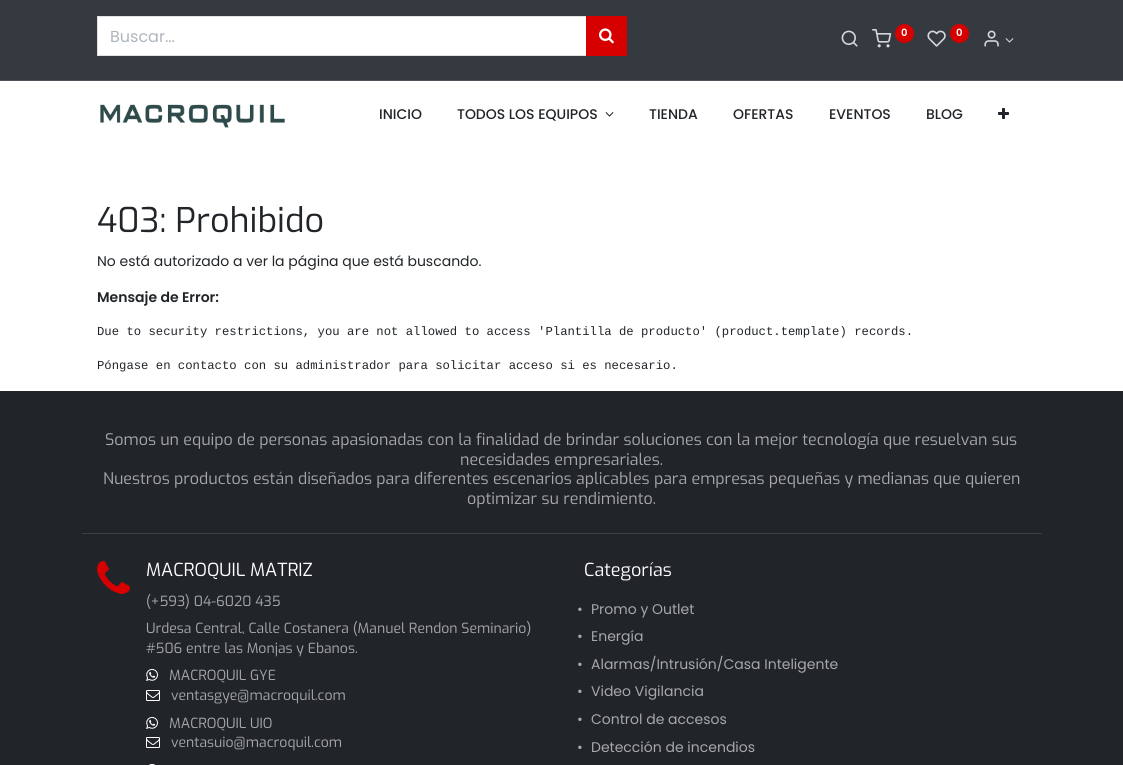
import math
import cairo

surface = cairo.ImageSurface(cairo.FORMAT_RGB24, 1123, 765)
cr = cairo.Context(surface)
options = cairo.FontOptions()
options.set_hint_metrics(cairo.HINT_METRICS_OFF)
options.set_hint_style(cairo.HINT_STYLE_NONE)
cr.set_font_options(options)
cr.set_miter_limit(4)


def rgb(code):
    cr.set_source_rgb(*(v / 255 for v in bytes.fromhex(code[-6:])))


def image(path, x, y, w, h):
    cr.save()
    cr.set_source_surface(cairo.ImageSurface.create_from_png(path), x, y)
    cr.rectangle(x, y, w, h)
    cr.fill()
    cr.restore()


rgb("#ffffff")
cr.paint()
rgb("#343a40")
cr.rectangle(0, 0, 1123, 80)
cr.fill()
rgb("#4c5257")
cr.rectangle(0, 80, 1123, 1)
cr.fill()
rgb("#ffffff")
cr.rectangle(97.5, 16.5, 489, 39)
cr.fill_preserve()
rgb("#dee2e6")
cr.set_line_width(1)
cr.stroke()
rgb("#d60000")
cr.rectangle(586, 16, 41, 40)
cr.fill()
image("img/1.png", 599, 28, 15, 16)
image("img/2.png", 841, 30, 17, 17)
image("img/3.png", 872, 29, 20, 19)
cr.arc(904.5, 33.5, 9.5, 0, 2 * math.pi)
cr.fill()
image("img/4.png", 927, 30, 19, 17)
cr.arc(959.5, 33.5, 9.5, 0, 2 * math.pi)
cr.fill()
image("img/5.png", 984, 30, 15, 17)
image("img/6.png", 1005, 38, 9, 5)
image("img/7.png", 100, 104, 185, 24)
image("img/8.png", 605, 112, 9, 5)
image("img/9.png", 998, 108, 11, 11)
rgb("#212529")
cr.rectangle(0, 391, 1123, 374)
cr.fill()
rgb("#3c3f43")
cr.rectangle(82, 533, 960, 1)
cr.fill()
image("img/10.png", 97, 561, 33, 33)
image("img/11.png", 146, 669, 12, 12)
image("img/12.png", 146, 690, 14, 11)
image("img/11.png", 146, 717, 12, 12)
image("img/12.png", 146, 737, 14, 11)
image("img/13.png", 149, 764, 7, 1)
cr.select_font_face("Poppins")
cr.set_font_size(16)
rgb("#adb5bd")
cr.move_to(110, 42)
cr.show_text("Buscar...")
cr.select_font_face("Poppins SemiBold")
cr.set_font_size(10)
rgb("#ffffff")
cr.move_to(901, 36)
cr.show_text("0")
cr.move_to(956, 36)
cr.show_text("0")
cr.select_font_face("Poppins Medium")
cr.set_font_size(14)
rgb("#212529")
for x, y, s in [
    (379, 119, "INICIO"),
    (457, 119, "TODOS LOS EQUIPOS"),
    (649, 119, "TIENDA"),
    (733, 119, "OFERTAS"),
    (829, 119, "EVENTOS"),
    (926, 119, "BLOG"),
]:
    cr.move_to(x, y)
    cr.show_text(s)
cr.select_font_face("Exo")
cr.set_font_size(34)
cr.move_to(97, 232)
cr.show_text("403: Prohibido")
cr.select_font_face("Poppins")
cr.set_font_size(14)
cr.move_to(97, 266)
cr.show_text("No está autorizado a ver la página que está buscando.")
cr.select_font_face("Poppins SemiBold")
cr.move_to(97, 302)
cr.show_text("Mensaje de Error:")
cr.select_font_face("Liberation Mono")
cr.set_font_size(12.25)
cr.move_to(97, 335)
cr.show_text("Due to security restrictions, you are not allowed to access 'Plantilla de producto' (product.template) records.")
cr.move_to(97, 369)
cr.show_text("Póngase en contacto con su administrador para solicitar acceso si es necesario.")
cr.select_font_face("Exo")
cr.set_font_size(16)
rgb("#a6a8a9")
for x, y, s in [
    (105, 445, "Somos un equipo de personas apasionadas con la finalidad de brindar soluciones con la mejor tecnología que resuelvan sus"),
    (460, 465, "necesidades empresariales."),
    (103, 484, "Nuestros productos están diseñados para diferentes escenarios aplicables para empresas pequeñas y medianas que quieren"),
    (467, 504, "optimizar su rendimiento."),
]:
    cr.move_to(x, y)
    cr.show_text(s)
cr.set_font_size(18)
rgb("#ffffff")
cr.move_to(146, 576)
cr.show_text("MACROQUIL MATRIZ")
cr.set_font_size(14)
rgb("#a6a8a9")
for x, y, s in [
    (146, 606, "(+593) 04-6020 435"),
    (146, 633, "Urdesa Central, Calle Costanera (Manuel Rendon Seminario)"),
    (146, 653, "#506 entre las Monjas y Ebanos."),
    (169, 680, "MACROQUIL GYE"),
    (171, 700, "ventasgye@macroquil.com"),
    (169, 728, "MACROQUIL UIO"),
    (171, 747, "ventasuio@macroquil.com"),
]:
    cr.move_to(x, y)
    cr.show_text(s)
cr.set_font_size(18)
rgb("#ffffff")
cr.move_to(584, 576)
cr.show_text("Categorías")
cr.select_font_face("Poppins")
cr.set_font_size(14)
rgb("#a6a8a9")
for x, y, s in [
    (577, 614, "•"),
    (591, 614, "Promo y Outlet"),
    (577, 641, "•"),
    (591, 641, "Energía"),
    (577, 669, "•"),
    (591, 669, "Alarmas/Intrusión/Casa Inteligente"),
    (577, 696, "•"),
    (591, 696, "Video Vigilancia"),
    (577, 724, "•"),
    (591, 724, "Control de accesos"),
    (577, 752, "•"),
    (591, 752, "Detección de incendios"),
]:
    cr.move_to(x, y)
    cr.show_text(s)
surface.write_to_png("page.png")
